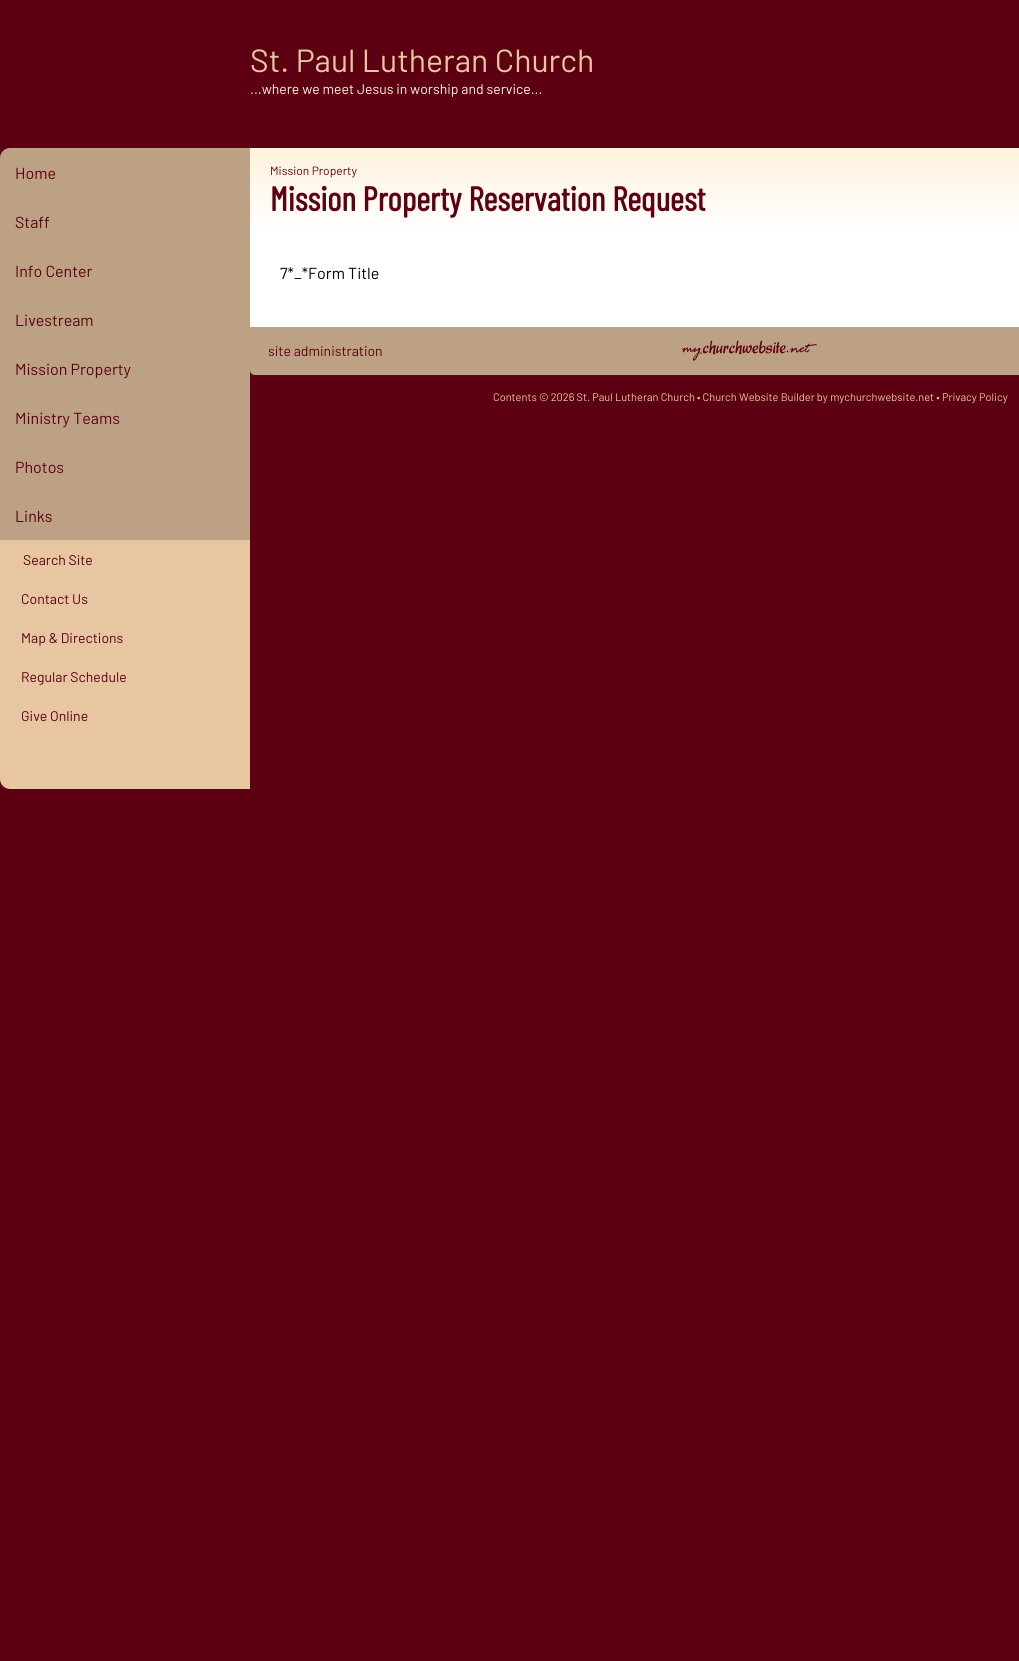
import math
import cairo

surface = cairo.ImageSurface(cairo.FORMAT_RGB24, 1019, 1661)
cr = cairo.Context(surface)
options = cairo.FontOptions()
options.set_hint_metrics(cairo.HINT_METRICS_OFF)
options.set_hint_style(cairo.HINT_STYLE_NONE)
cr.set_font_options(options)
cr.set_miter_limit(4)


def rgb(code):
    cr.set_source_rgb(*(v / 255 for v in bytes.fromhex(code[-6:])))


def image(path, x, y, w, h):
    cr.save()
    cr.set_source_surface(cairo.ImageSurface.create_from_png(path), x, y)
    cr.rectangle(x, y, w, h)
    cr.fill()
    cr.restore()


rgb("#5d0112")
cr.paint()
rgb("#bda184")
cr.new_path()
cr.move_to(10, 148)
cr.line_to(250, 148)
cr.line_to(250, 197)
cr.line_to(0, 197)
cr.line_to(0, 158)
cr.curve_to(0, 152.5, 4.5, 148, 10, 148)
cr.close_path()
cr.fill()
cr.rectangle(0, 197, 250, 343)
cr.fill()
rgb("#e8c6a2")
cr.rectangle(0, 540, 250, 195)
cr.fill()
cr.new_path()
cr.move_to(0, 735)
cr.line_to(250, 735)
cr.line_to(250, 789)
cr.line_to(10, 789)
cr.curve_to(4.5, 789, 0, 784.5, 0, 779)
cr.close_path()
cr.fill()
gradient = cairo.LinearGradient(750, 148, 750, 233)
gradient.add_color_stop_rgba(0, 1, 0.949, 0.867, 1)
gradient.add_color_stop_rgba(1, 1, 1, 1, 1)
cr.set_source(gradient)
cr.rectangle(250, 148, 769, 85)
cr.fill()
rgb("#ffffff")
cr.rectangle(250, 233, 769, 94)
cr.fill()
rgb("#bda184")
cr.new_path()
cr.move_to(250, 327)
cr.line_to(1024, 327)
cr.line_to(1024, 370)
cr.curve_to(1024, 373, 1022, 375, 1019, 375)
cr.line_to(255, 375)
cr.curve_to(252, 375, 250, 373, 250, 370)
cr.close_path()
cr.fill()
image("img/1.png", 682, 340, 135, 21)
cr.select_font_face("Barlow")
cr.set_font_size(32)
rgb("#e8c6a2")
cr.move_to(250, 72)
cr.show_text("St. Paul Lutheran Church")
cr.set_font_size(14)
rgb("#fff2dd")
cr.move_to(250, 94)
cr.show_text("...where we meet Jesus in worship and service...")
cr.set_font_size(16)
rgb("#5d0112")
for x, y, s in [
    (15, 179, "Home"),
    (15, 228, "Staff"),
    (15, 277, "Info Center"),
    (15, 326, "Livestream"),
    (15, 375, "Mission Property"),
    (15, 424, "Ministry Teams"),
    (15, 473, "Photos"),
    (15, 522, "Links"),
]:
    cr.move_to(x, y)
    cr.show_text(s)
cr.set_font_size(14)
for x, y, s in [
    (23, 565, "Search Site"),
    (21, 604, "Contact Us"),
    (21, 643, "Map & Directions"),
    (21, 682, "Regular Schedule"),
    (21, 721, "Give Online"),
]:
    cr.move_to(x, y)
    cr.show_text(s)
cr.set_font_size(12)
cr.move_to(270, 175)
cr.show_text("Mission Property")
cr.select_font_face("Barlow Condensed", cairo.FONT_SLANT_NORMAL, cairo.FONT_WEIGHT_BOLD)
cr.set_font_size(34)
cr.move_to(270, 211)
cr.show_text("Mission Property Reservation Request")
cr.select_font_face("Barlow")
cr.set_font_size(16)
rgb("#000000")
cr.move_to(280, 279)
cr.show_text("7*_*Form Title")
cr.set_font_size(14)
rgb("#5d0112")
cr.move_to(268, 356)
cr.show_text("site administration")
cr.set_font_size(11)
rgb("#e8c6a2")
cr.move_to(493, 401)
cr.show_text("Contents © 2026 St. Paul Lutheran Church • Church Website Builder by mychurchwebsite.net • Privacy Policy")
surface.write_to_png("page.png")
